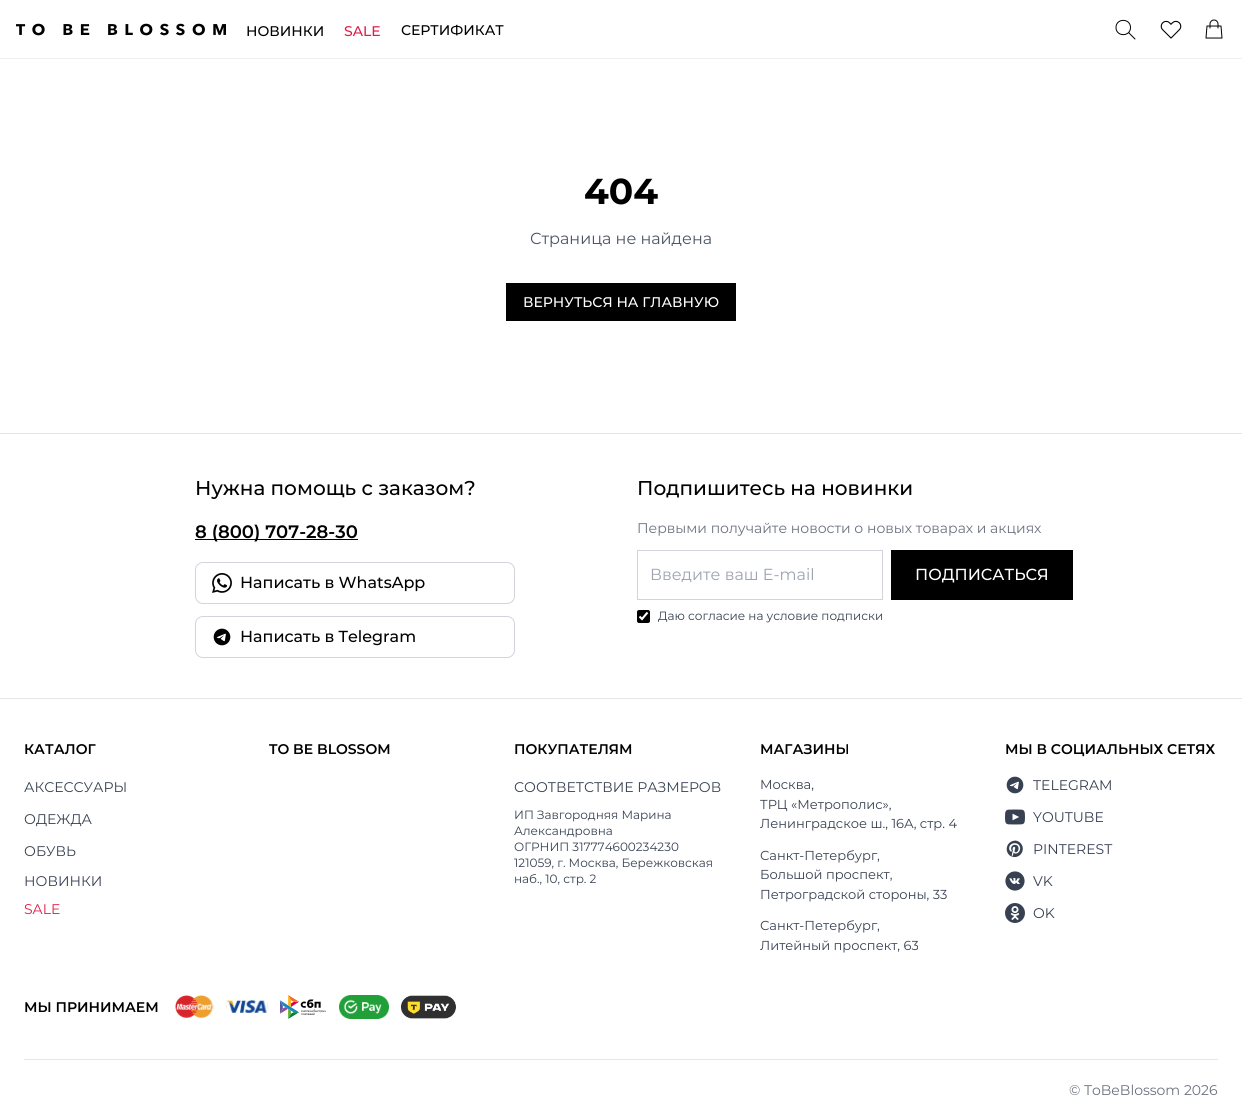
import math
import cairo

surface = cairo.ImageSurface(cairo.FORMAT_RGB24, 1242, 1119)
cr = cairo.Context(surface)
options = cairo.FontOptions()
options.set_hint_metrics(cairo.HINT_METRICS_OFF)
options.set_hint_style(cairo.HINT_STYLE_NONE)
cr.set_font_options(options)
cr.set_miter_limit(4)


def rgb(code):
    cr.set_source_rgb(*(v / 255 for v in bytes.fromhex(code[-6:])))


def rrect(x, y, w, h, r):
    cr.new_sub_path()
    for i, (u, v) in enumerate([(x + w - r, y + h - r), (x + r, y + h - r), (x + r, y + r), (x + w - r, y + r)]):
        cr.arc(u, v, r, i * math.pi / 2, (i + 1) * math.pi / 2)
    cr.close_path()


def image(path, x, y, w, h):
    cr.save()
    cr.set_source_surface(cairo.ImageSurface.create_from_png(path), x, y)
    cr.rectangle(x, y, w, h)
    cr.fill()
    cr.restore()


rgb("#ffffff")
cr.paint()
rgb("#f0f0f0")
cr.rectangle(0, 58, 1242, 1)
cr.fill()
image("img/1.png", 16, 23, 210, 13)
cr.new_path()
cr.move_to(1135, 39)
cr.line_to(1128.5, 32.5)
cr.move_to(1130.5, 27.5)
cr.curve_to(1130.5, 37, 1116, 37, 1116, 27.5)
cr.curve_to(1116, 18, 1130.5, 18, 1130.5, 27.5)
cr.close_path()
rgb("#000000")
cr.set_line_width(1)
cr.set_line_cap(cairo.LINE_CAP_ROUND)
cr.set_line_join(cairo.LINE_JOIN_ROUND)
cr.stroke()
image("img/2.png", 1160, 20, 22, 19)
image("img/3.png", 1205, 19, 18, 20)
for x, y, w, h, color in [
    (506, 283, 230, 38, "#000000"),
    (0, 433, 1242, 1, "#e5e5e5"),
    (195, 539, 163, 1, "#000000"),
]:
    rgb(color)
    cr.rectangle(x, y, w, h)
    cr.fill()
rrect(195.5, 562.5, 319, 41, 7.5)
rgb("#d1d5db")
cr.set_line_cap(cairo.LINE_CAP_BUTT)
cr.set_line_join(cairo.LINE_JOIN_MITER)
cr.stroke()
image("img/4.png", 212, 573, 20, 20)
rrect(195.5, 616.5, 319, 41, 7.5)
cr.stroke()
image("img/5.png", 213, 628, 18, 18)
cr.rectangle(637.5, 550.5, 245, 49)
cr.stroke()
rgb("#000000")
cr.rectangle(891, 550, 182, 50)
cr.fill()
rrect(637, 610, 13, 13, 2)
cr.fill()
cr.new_path()
cr.move_to(639.5, 616.5)
cr.line_to(642, 619)
cr.line_to(647.5, 612.5)
rgb("#ffffff")
cr.set_line_width(2.1)
cr.stroke()
rgb("#e5e5e5")
cr.rectangle(0, 698, 1242, 1)
cr.fill()
image("img/6.png", 1006, 776, 18, 18)
image("img/7.png", 1005, 809, 20, 16)
image("img/8.png", 1006, 840, 17, 18)
image("img/9.png", 1005, 871, 20, 20)
image("img/10.png", 1005, 903, 20, 20)
image("img/11.png", 175, 995, 39, 24)
image("img/12.png", 226, 999, 42, 20)
image("img/13.png", 280, 995, 46, 24)
image("img/14.png", 339, 995, 50, 24)
image("img/15.png", 401, 995, 55, 24)
rgb("#e5e7eb")
cr.rectangle(24, 1059, 1194, 1)
cr.fill()
cr.select_font_face("Montserrat Medium")
cr.set_font_size(14)
rgb("#000000")
cr.move_to(246, 36)
cr.show_text("НОВИНКИ")
rgb("#e11d48")
cr.move_to(344, 36)
cr.show_text("SALE")
rgb("#000000")
cr.move_to(401, 35)
cr.show_text("СЕРТИФИКАТ")
cr.select_font_face("Montserrat", cairo.FONT_SLANT_NORMAL, cairo.FONT_WEIGHT_BOLD)
cr.set_font_size(36)
cr.move_to(584, 204)
cr.show_text("404")
cr.select_font_face("Montserrat")
cr.set_font_size(16)
rgb("#4b5563")
cr.move_to(530, 244)
cr.show_text("Страница не найдена")
cr.select_font_face("Montserrat Medium")
cr.set_font_size(14)
rgb("#ffffff")
cr.move_to(523, 307)
cr.show_text("ВЕРНУТЬСЯ НА ГЛАВНУЮ")
cr.set_font_size(20)
rgb("#000000")
cr.move_to(195, 495)
cr.show_text("Нужна помощь с заказом?")
cr.select_font_face("Montserrat SemiBold")
cr.set_font_size(18)
cr.move_to(195, 538)
cr.show_text("8 (800) 707-28-30")
cr.select_font_face("Montserrat Medium")
cr.set_font_size(16)
cr.move_to(240, 588)
cr.show_text("Написать в WhatsApp")
cr.move_to(240, 642)
cr.show_text("Написать в Telegram")
cr.set_font_size(20)
cr.move_to(637, 495)
cr.show_text("Подпишитесь на новинки")
cr.select_font_face("Montserrat")
cr.set_font_size(14)
rgb("#6b7280")
cr.move_to(637, 533)
cr.show_text("Первыми получайте новости о новых товарах и акциях")
cr.set_font_size(16)
rgb("#9ca3af")
cr.move_to(650, 580)
cr.show_text("Введите ваш E-mail")
cr.select_font_face("Montserrat Medium")
rgb("#ffffff")
cr.move_to(915, 580)
cr.show_text("ПОДПИСАТЬСЯ")
cr.select_font_face("Montserrat")
cr.set_font_size(12)
rgb("#374151")
cr.move_to(658, 620)
cr.show_text("Даю согласие на условие подписки")
cr.select_font_face("Montserrat SemiBold")
cr.set_font_size(14)
rgb("#000000")
cr.move_to(24, 754)
cr.show_text("КАТАЛОГ")
cr.select_font_face("Montserrat")
rgb("#374151")
for x, y, s in [
    (24, 792, "АКСЕССУАРЫ"),
    (24, 824, "ОДЕЖДА"),
    (24, 856, "ОБУВЬ"),
    (24, 886, "НОВИНКИ"),
]:
    cr.move_to(x, y)
    cr.show_text(s)
rgb("#e11d48")
cr.move_to(24, 914)
cr.show_text("SALE")
cr.select_font_face("Montserrat SemiBold")
rgb("#000000")
cr.move_to(269, 754)
cr.show_text("TO BE BLOSSOM")
cr.move_to(514, 754)
cr.show_text("ПОКУПАТЕЛЯМ")
cr.select_font_face("Montserrat")
rgb("#374151")
cr.move_to(514, 792)
cr.show_text("СООТВЕТСТВИЕ РАЗМЕРОВ")
cr.set_font_size(12)
for x, y, s in [
    (514, 819, "ИП Завгородняя Марина"),
    (514, 835, "Александровна"),
    (514, 851, "ОГРНИП 317774600234230"),
    (514, 867, "121059, г. Москва, Бережковская"),
    (514, 883, "наб., 10, стр. 2"),
]:
    cr.move_to(x, y)
    cr.show_text(s)
cr.select_font_face("Montserrat SemiBold")
cr.set_font_size(14)
rgb("#000000")
cr.move_to(760, 754)
cr.show_text("МАГАЗИНЫ")
cr.select_font_face("Montserrat")
cr.set_font_size(13)
rgb("#374151")
for x, y, s in [
    (760, 789, "Москва,"),
    (760, 809, "ТРЦ «Метрополис»,"),
    (760, 828, "Ленинградское ш., 16А, стр. 4"),
    (760, 860, "Санкт-Петербург,"),
    (760, 879, "Большой проспект,"),
    (760, 899, "Петроградской стороны, 33"),
    (760, 930, "Санкт-Петербург,"),
    (760, 950, "Литейный проспект, 63"),
]:
    cr.move_to(x, y)
    cr.show_text(s)
cr.select_font_face("Montserrat SemiBold")
cr.set_font_size(14)
rgb("#000000")
cr.move_to(1005, 754)
cr.show_text("МЫ В СОЦИАЛЬНЫХ СЕТЯХ")
cr.select_font_face("Montserrat")
rgb("#374151")
for x, y, s in [
    (1033, 790, "TELEGRAM"),
    (1033, 822, "YOUTUBE"),
    (1033, 854, "PINTEREST"),
    (1033, 886, "VK"),
    (1033, 918, "OK"),
]:
    cr.move_to(x, y)
    cr.show_text(s)
cr.select_font_face("Montserrat SemiBold")
rgb("#000000")
cr.move_to(24, 1012)
cr.show_text("МЫ ПРИНИМАЕМ")
cr.select_font_face("Montserrat")
rgb("#6b7280")
cr.move_to(1069, 1095)
cr.show_text("© ToBeBlossom 2026")
surface.write_to_png("page.png")
